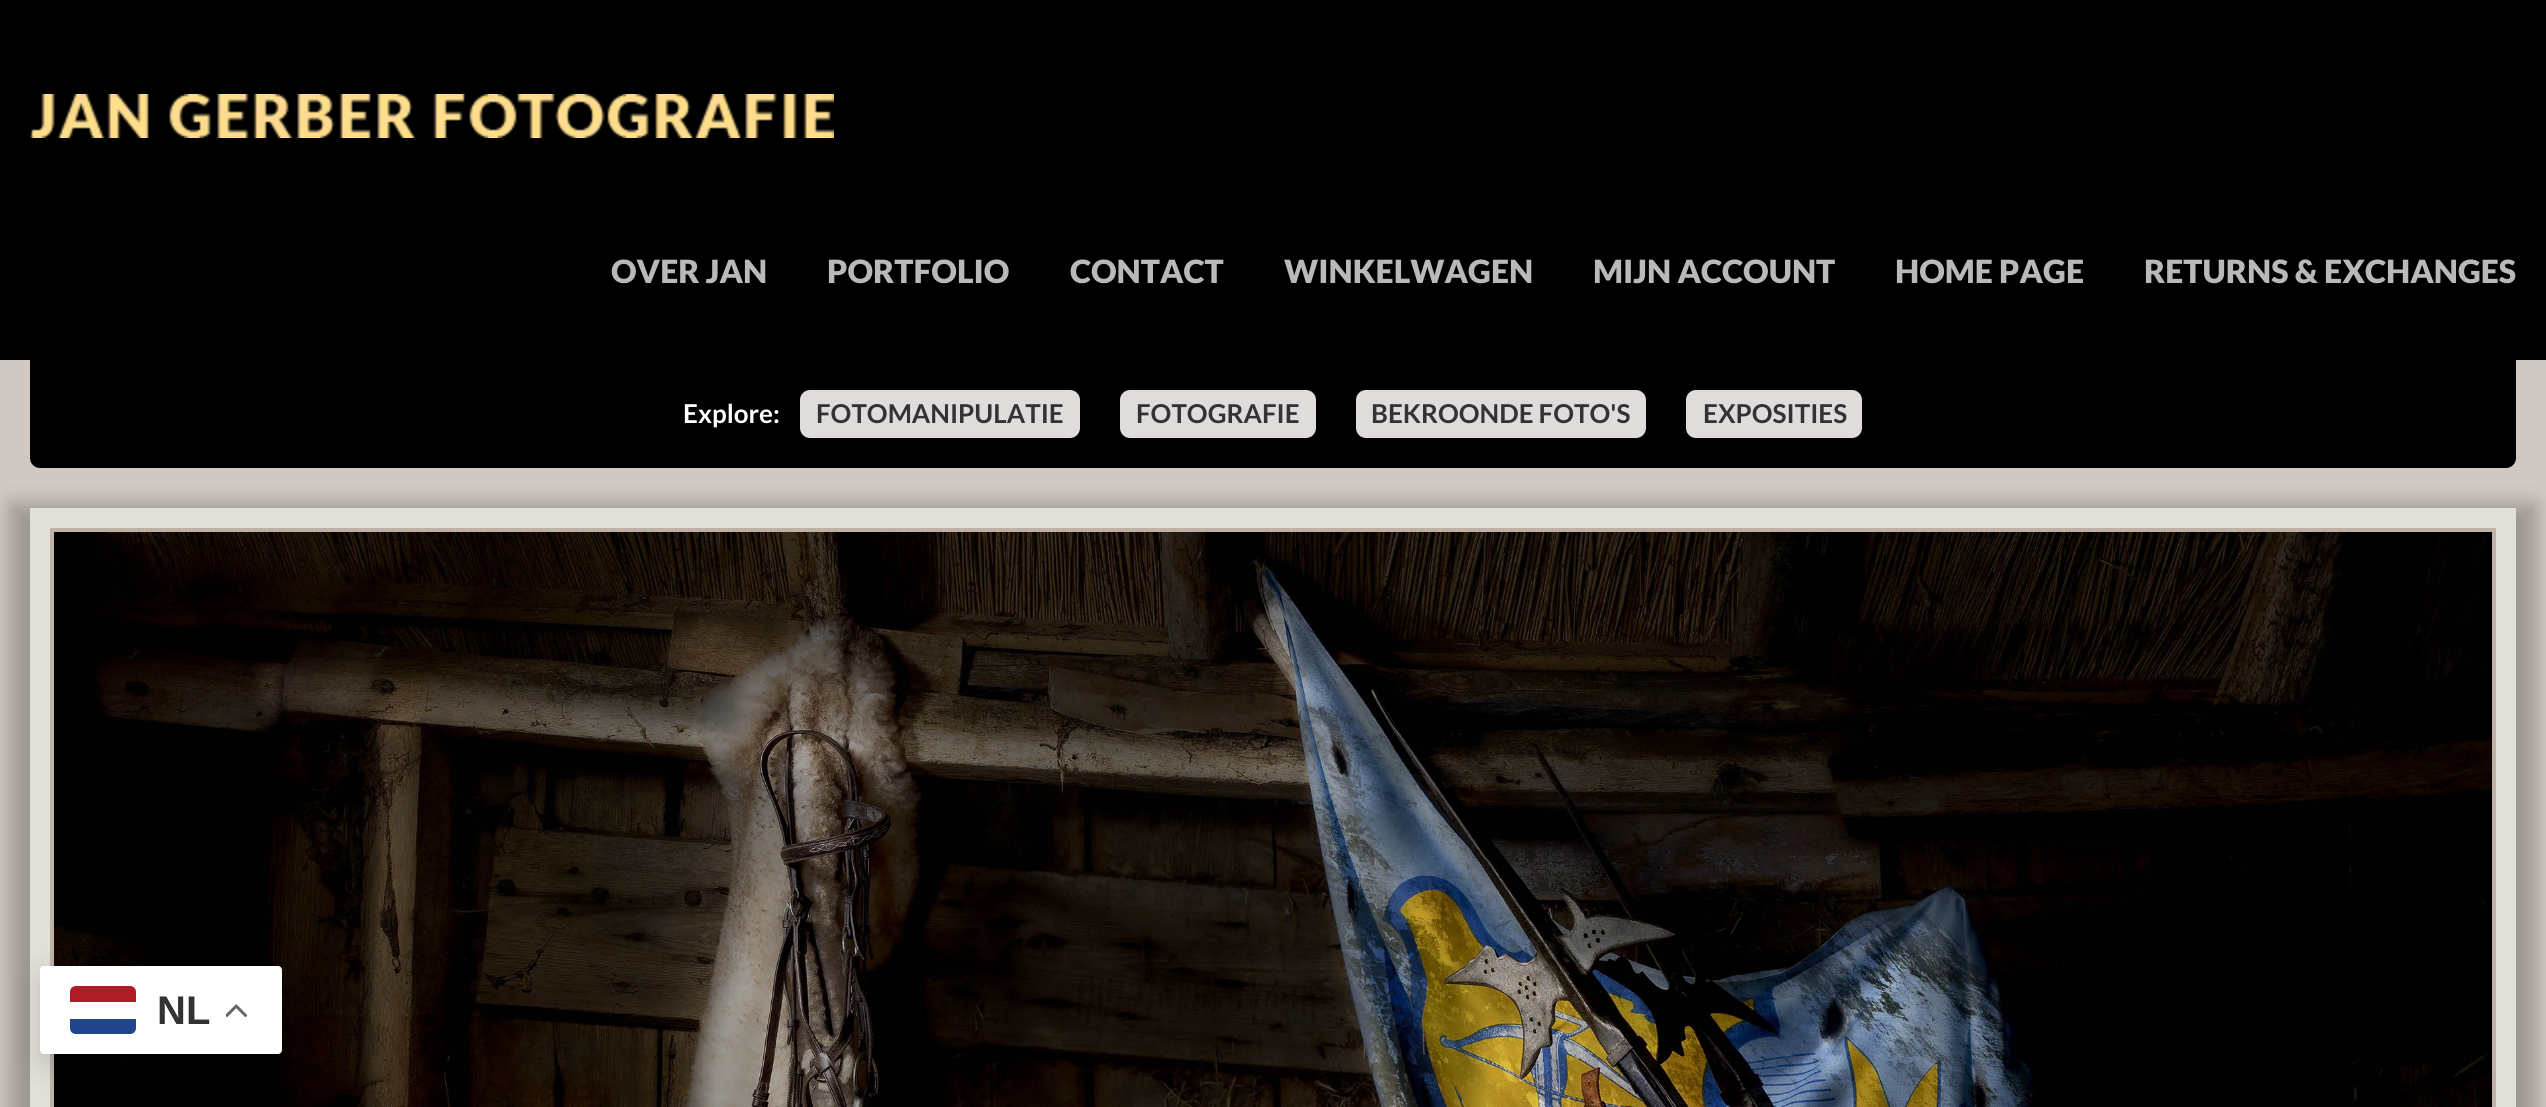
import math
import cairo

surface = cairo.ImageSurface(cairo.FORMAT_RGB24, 2546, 1107)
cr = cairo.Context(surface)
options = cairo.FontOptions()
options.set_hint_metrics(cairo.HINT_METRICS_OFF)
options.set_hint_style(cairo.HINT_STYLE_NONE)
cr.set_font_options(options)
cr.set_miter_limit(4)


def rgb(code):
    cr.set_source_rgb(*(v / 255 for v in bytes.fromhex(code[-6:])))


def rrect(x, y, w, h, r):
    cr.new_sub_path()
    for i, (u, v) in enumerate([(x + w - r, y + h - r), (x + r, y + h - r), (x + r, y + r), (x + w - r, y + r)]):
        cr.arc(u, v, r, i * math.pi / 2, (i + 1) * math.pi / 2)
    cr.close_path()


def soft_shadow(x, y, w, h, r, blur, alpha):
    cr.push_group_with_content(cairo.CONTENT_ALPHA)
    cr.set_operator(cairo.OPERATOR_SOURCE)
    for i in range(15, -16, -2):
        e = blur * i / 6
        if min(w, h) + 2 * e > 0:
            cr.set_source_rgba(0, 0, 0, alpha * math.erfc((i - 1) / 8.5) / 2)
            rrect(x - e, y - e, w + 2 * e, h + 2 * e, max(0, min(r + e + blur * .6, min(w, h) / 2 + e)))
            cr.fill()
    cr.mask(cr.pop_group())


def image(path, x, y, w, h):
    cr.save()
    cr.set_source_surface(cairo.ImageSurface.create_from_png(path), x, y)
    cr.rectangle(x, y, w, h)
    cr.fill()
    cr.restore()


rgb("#000000")
cr.paint()
image("img/1.png", 30, 94, 804, 44)
rgb("#d0c9c3")
cr.rectangle(0, 360, 2546, 747)
cr.fill()
rgb("#000000")
cr.new_path()
cr.move_to(30, 360)
cr.line_to(2516, 360)
cr.line_to(2516, 458)
cr.curve_to(2516, 463.5, 2511.5, 468, 2506, 468)
cr.line_to(40, 468)
cr.curve_to(34.5, 468, 30, 463.5, 30, 458)
cr.close_path()
cr.fill()
rgb("#e1dcdc")
rrect(800, 390, 280, 48, 10)
cr.fill()
rrect(1120, 390, 196, 48, 10)
cr.fill()
rrect(1356, 390, 290, 48, 10)
cr.fill()
rrect(1686, 390, 176, 48, 10)
cr.fill()
rgb("#000000")
soft_shadow(10, 504, 2526, 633, 0, 10, 0.25)
cr.rectangle(40, 518, 2466, 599)
rgb("#e2ded8")
cr.set_line_width(20)
cr.stroke()
cr.rectangle(52, 530, 2442, 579)
rgb("#bfb1a6")
cr.set_line_width(4)
cr.stroke()
image("img/2.png", 54, 532, 2438, 575)
rgb("#000000")
soft_shadow(40, 976, 242, 88, 4, 15, 0.15)
rgb("#ffffff")
rrect(40, 966, 242, 88, 4)
cr.fill()
rgb("#21468b")
cr.new_path()
cr.move_to(70, 1019)
cr.line_to(136, 1019)
cr.line_to(136, 1028)
cr.curve_to(136, 1031.5, 133.5, 1034, 130, 1034)
cr.line_to(76, 1034)
cr.curve_to(72.5, 1034, 70, 1031.5, 70, 1028)
cr.close_path()
cr.fill()
rgb("#ae1c28")
cr.new_path()
cr.move_to(76, 986)
cr.line_to(130, 986)
cr.curve_to(133.5, 986, 136, 988.5, 136, 992)
cr.line_to(136, 1002)
cr.line_to(70, 1002)
cr.line_to(70, 992)
cr.curve_to(70, 988.5, 72.5, 986, 76, 986)
cr.close_path()
cr.fill()
image("img/3.png", 226, 1004, 22, 14)
cr.select_font_face("Lato Black")
cr.set_font_size(32)
rgb("#b9b9b9")
for x, y, s in [
    (611, 283, "OVER JAN"),
    (827, 283, "PORTFOLIO"),
    (1070, 283, "CONTACT"),
    (1284, 283, "WINKELWAGEN"),
    (1593, 283, "MIJN ACCOUNT"),
    (1895, 283, "HOME PAGE"),
    (2144, 283, "RETURNS & EXCHANGES"),
]:
    cr.move_to(x, y)
    cr.show_text(s)
cr.select_font_face("Lato", cairo.FONT_SLANT_NORMAL, cairo.FONT_WEIGHT_BOLD)
cr.set_font_size(26)
rgb("#ffffff")
cr.move_to(683, 423)
cr.show_text("Explore:")
rgb("#333333")
for x, y, s in [
    (816, 423, "FOTOMANIPULATIE"),
    (1136, 423, "FOTOGRAFIE"),
    (1371, 423, "BEKROONDE FOTO'S"),
    (1703, 423, "EXPOSITIES"),
]:
    cr.move_to(x, y)
    cr.show_text(s)
cr.select_font_face("Liberation Sans", cairo.FONT_SLANT_NORMAL, cairo.FONT_WEIGHT_BOLD)
cr.set_font_size(40)
cr.move_to(157, 1024)
cr.show_text("NL")
surface.write_to_png("page.png")
